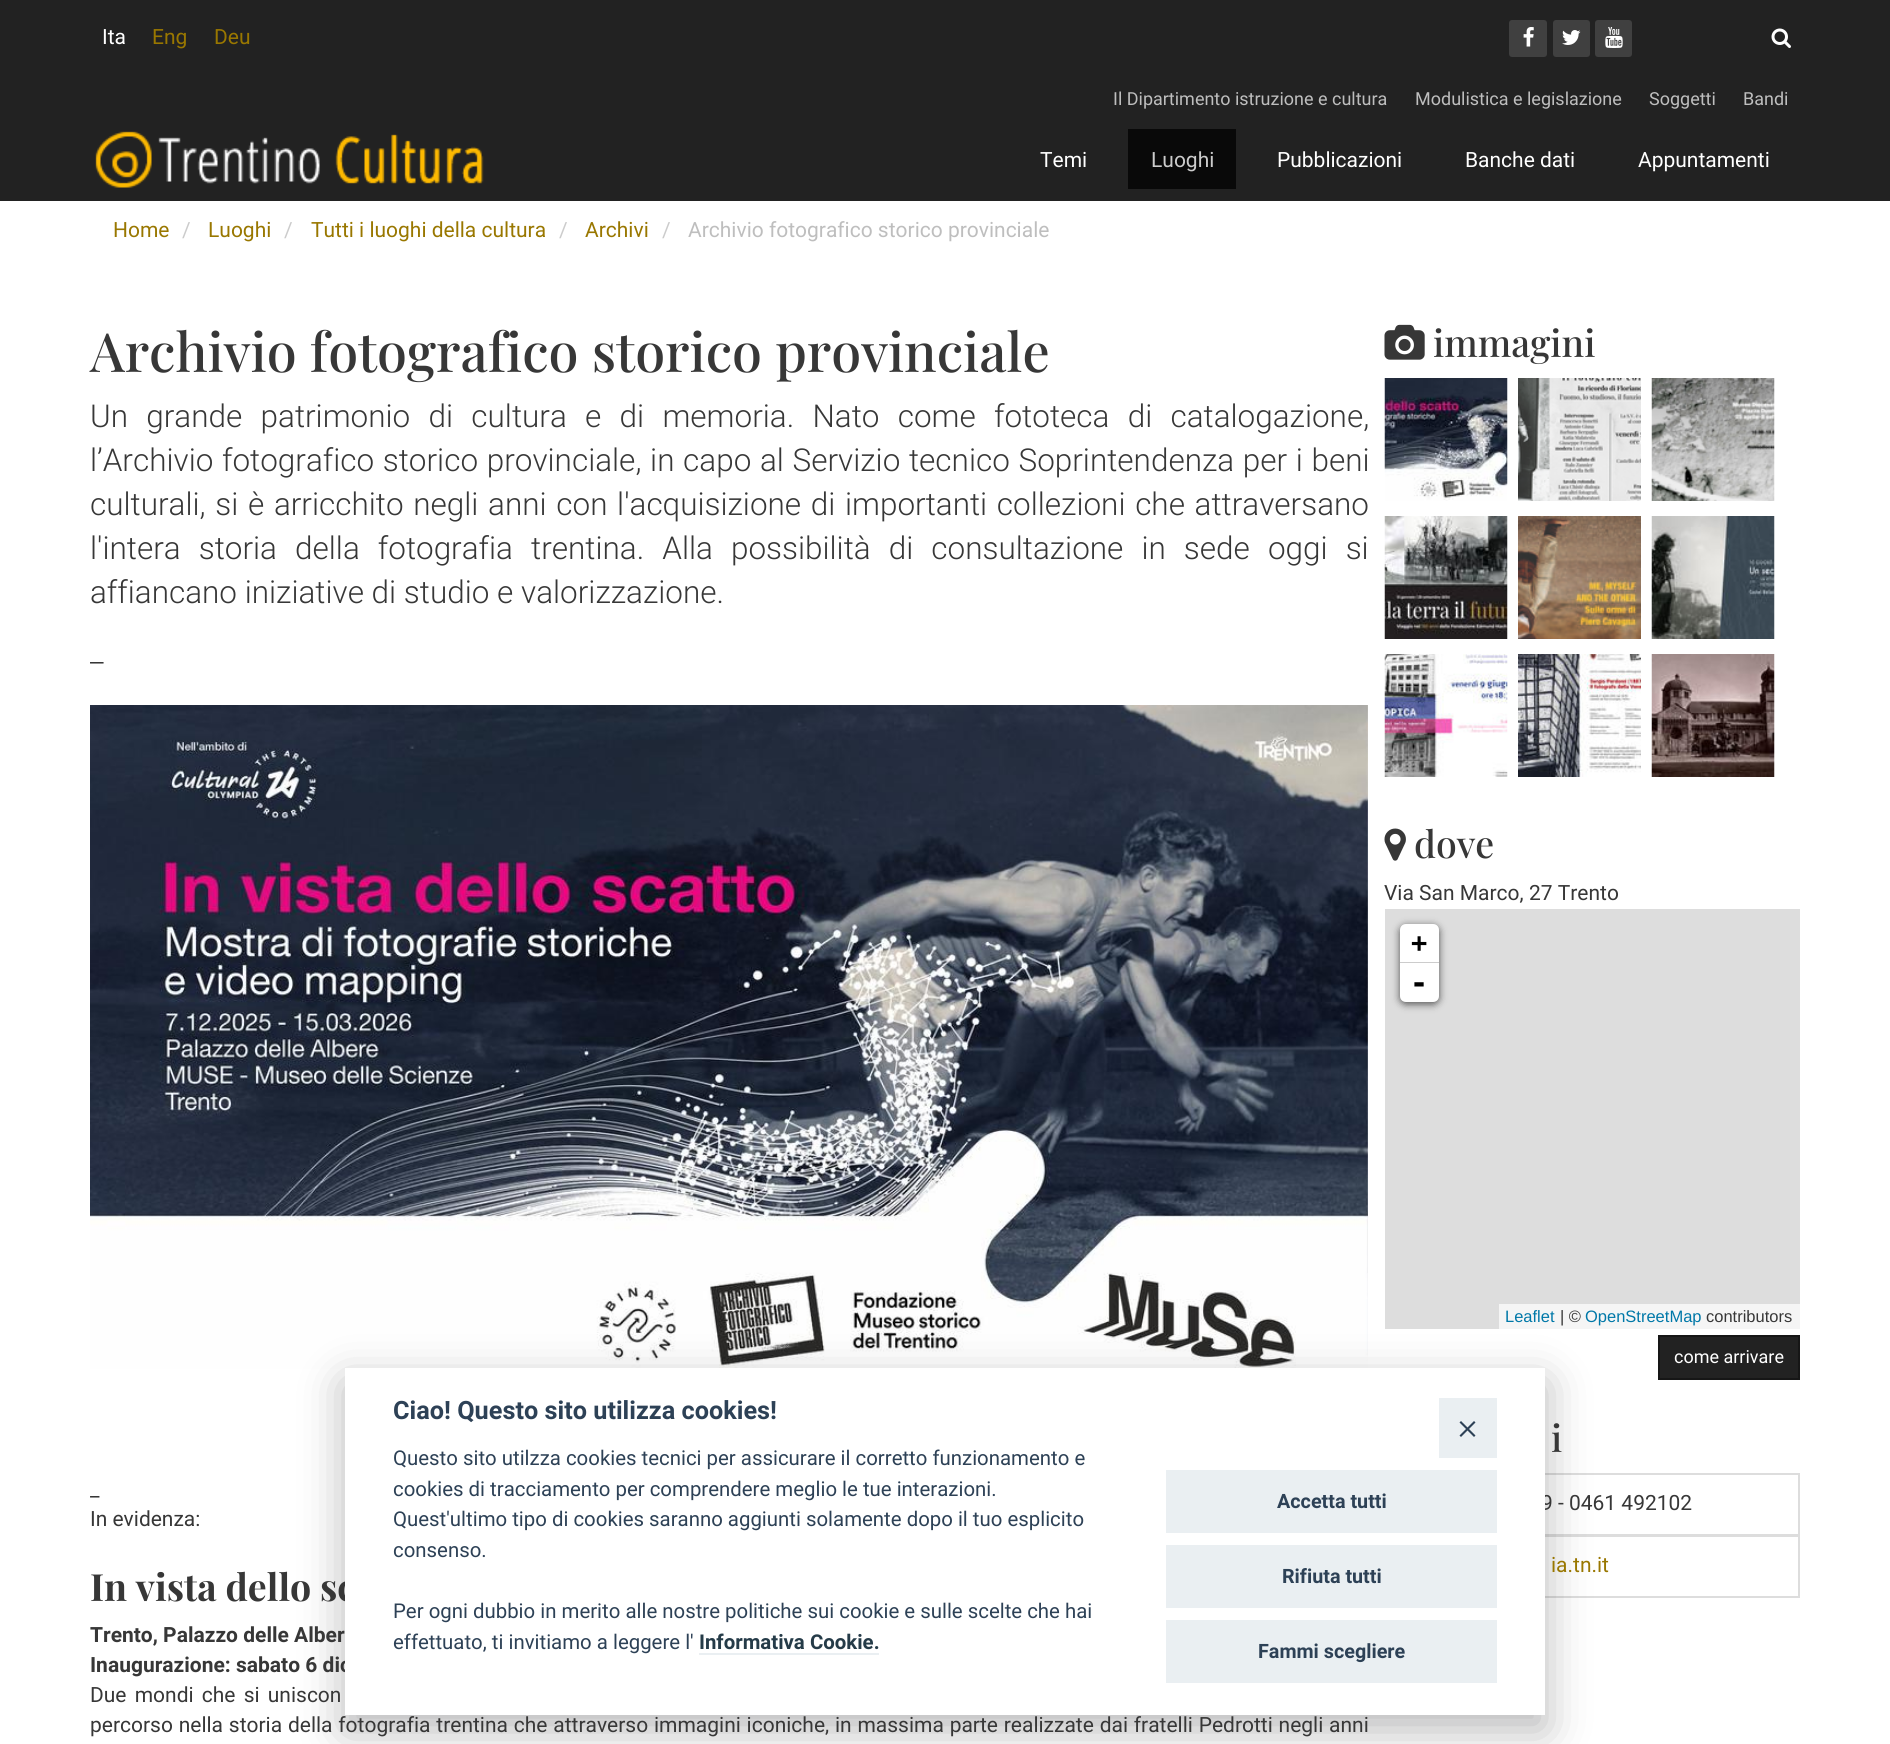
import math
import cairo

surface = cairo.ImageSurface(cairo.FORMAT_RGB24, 1890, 1744)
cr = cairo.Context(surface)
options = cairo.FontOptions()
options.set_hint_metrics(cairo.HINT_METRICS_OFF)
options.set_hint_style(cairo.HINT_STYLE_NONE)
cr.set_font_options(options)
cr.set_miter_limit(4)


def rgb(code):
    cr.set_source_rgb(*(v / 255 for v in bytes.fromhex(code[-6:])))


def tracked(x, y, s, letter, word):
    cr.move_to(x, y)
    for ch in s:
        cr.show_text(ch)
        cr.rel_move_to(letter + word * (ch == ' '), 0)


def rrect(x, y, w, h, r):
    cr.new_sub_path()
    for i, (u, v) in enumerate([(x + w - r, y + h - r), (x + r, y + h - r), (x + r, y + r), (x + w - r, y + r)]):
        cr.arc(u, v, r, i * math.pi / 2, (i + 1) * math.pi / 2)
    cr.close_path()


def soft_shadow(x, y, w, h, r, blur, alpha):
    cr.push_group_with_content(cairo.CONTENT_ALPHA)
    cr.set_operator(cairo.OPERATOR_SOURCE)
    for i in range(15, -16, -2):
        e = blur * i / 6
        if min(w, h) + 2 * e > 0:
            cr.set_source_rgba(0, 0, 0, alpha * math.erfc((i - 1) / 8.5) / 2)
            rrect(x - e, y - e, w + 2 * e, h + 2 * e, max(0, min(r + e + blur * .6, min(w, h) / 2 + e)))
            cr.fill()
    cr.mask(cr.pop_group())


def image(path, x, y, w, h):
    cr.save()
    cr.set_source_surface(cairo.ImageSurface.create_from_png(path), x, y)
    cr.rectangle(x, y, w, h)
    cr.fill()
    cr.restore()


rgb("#ffffff")
cr.paint()
rgb("#222222")
cr.rectangle(0, 0, 1890, 201)
cr.fill()
rgb("#404040")
rrect(1509, 20, 38, 37, 3)
cr.fill()
image("img/1.png", 1523, 27, 11, 20)
rrect(1553, 20, 37, 37, 3)
cr.fill()
image("img/2.png", 1562, 30, 19, 15)
rrect(1595, 20, 37, 37, 3)
cr.fill()
image("img/3.png", 1605, 27, 18, 21)
image("img/4.png", 1771, 28, 20, 20)
image("img/5.png", 95, 131, 389, 57)
rgb("#090909")
cr.rectangle(1128, 129, 108, 60)
cr.fill()
image("img/6.png", 90, 705, 1278, 664)
image("img/7.png", 1384, 324, 41, 36)
image("img/8.png", 1384, 378, 124, 123)
image("img/9.png", 1518, 378, 123, 123)
image("img/10.png", 1651, 378, 124, 123)
image("img/11.png", 1384, 516, 124, 123)
image("img/12.png", 1518, 516, 123, 123)
image("img/13.png", 1651, 516, 124, 123)
image("img/14.png", 1384, 654, 124, 123)
image("img/15.png", 1518, 654, 123, 123)
image("img/16.png", 1651, 654, 124, 123)
image("img/17.png", 1384, 828, 22, 33)
rgb("#dddddd")
cr.rectangle(1385, 909, 415, 420)
cr.fill()
rgb("#000000")
soft_shadow(1400, 926, 39, 78, 6, 4, 0.65)
rgb("#ffffff")
cr.new_path()
cr.move_to(1406, 924)
cr.line_to(1433, 924)
cr.curve_to(1436.5, 924, 1439, 926.5, 1439, 930)
cr.line_to(1439, 963)
cr.line_to(1400, 963)
cr.line_to(1400, 930)
cr.curve_to(1400, 926.5, 1402.5, 924, 1406, 924)
cr.close_path()
cr.fill()
rgb("#cccccc")
cr.rectangle(1400, 962, 39, 1)
cr.fill()
rgb("#ffffff")
cr.new_path()
cr.move_to(1400, 963)
cr.line_to(1439, 963)
cr.line_to(1439, 996)
cr.curve_to(1439, 999.5, 1436.5, 1002, 1433, 1002)
cr.line_to(1406, 1002)
cr.curve_to(1402.5, 1002, 1400, 999.5, 1400, 996)
cr.close_path()
cr.fill()
rgb("#f5f5f5")
cr.rectangle(1499, 1304, 301, 25)
cr.fill()
rgb("#222222")
cr.rectangle(1659, 1336, 140, 43)
cr.fill_preserve()
rgb("#161616")
cr.stroke()
cr.rectangle(1386, 1474, 413, 61)
rgb("#dddddd")
cr.stroke()
cr.rectangle(1386, 1536, 413, 61)
cr.stroke()
rgb("#020203")
soft_shadow(345, 1383, 1200, 347, 0, 22.5, 0.28)
cr.select_font_face("Roboto")
cr.set_font_size(21)
rgb("#ffffff")
cr.move_to(102, 44)
cr.show_text("Ita")
rgb("#997700")
cr.move_to(152, 44)
cr.show_text("Eng")
cr.move_to(214, 44)
cr.show_text("Deu")
cr.set_font_size(18)
rgb("#bebebe")
for x, y, s in [
    (1113, 105, "Il Dipartimento istruzione e cultura"),
    (1415, 105, "Modulistica e legislazione"),
    (1649, 105, "Soggetti"),
    (1743, 105, "Bandi"),
]:
    cr.move_to(x, y)
    cr.show_text(s)
cr.set_font_size(21)
rgb("#ffffff")
cr.move_to(1040, 167)
cr.show_text("Temi")
rgb("#cccccc")
cr.move_to(1151, 167)
cr.show_text("Luoghi")
rgb("#ffffff")
for x, y, s in [
    (1277, 167, "Pubblicazioni"),
    (1465, 167, "Banche dati"),
    (1638, 167, "Appuntamenti"),
]:
    cr.move_to(x, y)
    cr.show_text(s)
rgb("#997700")
cr.move_to(113, 237)
cr.show_text("Home")
rgb("#cccccc")
cr.move_to(182, 237)
cr.show_text("/")
rgb("#997700")
cr.move_to(208, 237)
cr.show_text("Luoghi")
rgb("#cccccc")
cr.move_to(284, 237)
cr.show_text("/")
rgb("#997700")
cr.move_to(311, 237)
cr.show_text("Tutti i luoghi della cultura")
rgb("#cccccc")
cr.move_to(559, 237)
cr.show_text("/")
rgb("#997700")
cr.move_to(585, 237)
cr.show_text("Archivi")
rgb("#cccccc")
cr.move_to(662, 237)
cr.show_text("/")
rgb("#bebebe")
cr.move_to(688, 237)
cr.show_text("Archivio fotografico storico provinciale")
cr.select_font_face("Playfair Display Medium")
cr.set_font_size(54)
rgb("#373737")
cr.move_to(90, 372)
cr.show_text("Archivio fotografico storico provinciale")
cr.select_font_face("Roboto Light")
cr.set_font_size(31.5)
tracked(90, 427, "Un grande patrimonio di cultura e di memoria. Nato come fototeca di catalogazione,", 0, 10.6)
tracked(90, 471, "l’Archivio fotografico storico provinciale, in capo al Servizio tecnico Soprintendenza per i beni", 0, 1)
tracked(90, 515, "culturali, si è arricchito negli anni con l'acquisizione di importanti collezioni che attraversano", 0, 2)
tracked(90, 559, "l'intera storia della fotografia trentina. Alla possibilità di consultazione in sede oggi si", 0, 10.4)
cr.move_to(90, 603)
cr.show_text("affiancano iniziative di studio e valorizzazione.")
cr.move_to(90, 662)
cr.show_text("_")
cr.select_font_face("Roboto")
cr.set_font_size(21)
cr.move_to(90, 1496)
cr.show_text("_")
cr.move_to(90, 1526)
cr.show_text("In evidenza:")
cr.select_font_face("Playfair Display", cairo.FONT_SLANT_NORMAL, cairo.FONT_WEIGHT_BOLD)
cr.set_font_size(37.5)
cr.move_to(90, 1601)
cr.show_text("In vista dello sc")
cr.select_font_face("Roboto", cairo.FONT_SLANT_NORMAL, cairo.FONT_WEIGHT_BOLD)
cr.set_font_size(21)
cr.move_to(90, 1642)
cr.show_text("Trento, Palazzo delle Alber")
cr.move_to(90, 1672)
cr.show_text("Inaugurazione: sabato 6 dic")
cr.select_font_face("Roboto")
tracked(90, 1702, "Due mondi che si uniscon", 0, 3)
tracked(90, 1732, "percorso nella storia della fotografia trentina che attraverso immagini iconiche, in massima parte realizzate dai fratelli Pedrotti negli anni", 0, 0.6)
cr.select_font_face("Playfair Display Medium")
cr.set_font_size(37.5)
cr.move_to(1433, 357)
cr.show_text("immagini")
cr.move_to(1414, 858)
cr.show_text("dove")
cr.select_font_face("Roboto")
cr.set_font_size(21)
cr.move_to(1384, 900)
cr.show_text("Via San Marco, 27 Trento")
cr.select_font_face("DejaVu Sans Mono", cairo.FONT_SLANT_NORMAL, cairo.FONT_WEIGHT_BOLD)
cr.set_font_size(27)
rgb("#000000")
cr.move_to(1411, 952)
cr.show_text("+")
cr.set_font_size(30)
cr.move_to(1410, 993)
cr.show_text("-")
cr.select_font_face("Liberation Sans")
cr.set_font_size(16.5)
rgb("#0078a8")
cr.move_to(1505, 1322)
cr.show_text("Leaflet")
rgb("#373737")
cr.move_to(1560, 1322)
cr.show_text("| ©")
rgb("#0078a8")
cr.move_to(1585, 1322)
cr.show_text("OpenStreetMap")
rgb("#373737")
cr.move_to(1706, 1322)
cr.show_text("contributors")
cr.select_font_face("Roboto")
cr.set_font_size(18)
rgb("#ffffff")
cr.move_to(1674, 1363)
cr.show_text("come arrivare")
cr.select_font_face("Playfair Display Medium")
cr.set_font_size(37.5)
rgb("#373737")
cr.move_to(1551, 1452)
cr.show_text("i")
cr.select_font_face("Roboto")
cr.set_font_size(21)
cr.move_to(1541, 1510)
cr.show_text("9 - 0461 492102")
rgb("#997700")
cr.move_to(1551, 1572)
cr.show_text("ia.tn.it")
rgb("#ffffff")
cr.rectangle(345, 1368, 1200, 347)
cr.fill()
cr.select_font_face("Roboto", cairo.FONT_SLANT_NORMAL, cairo.FONT_WEIGHT_BOLD)
cr.set_font_size(25.25)
rgb("#2d4156")
cr.move_to(393, 1419)
cr.show_text("Ciao! Questo sito utilizza cookies!")
cr.select_font_face("Roboto")
cr.set_font_size(20.4)
for x, y, s in [
    (393, 1465, "Questo sito utilzza cookies tecnici per assicurare il corretto funzionamento e"),
    (393, 1496, "cookies di tracciamento per comprendere meglio le tue interazioni."),
    (393, 1526, "Quest'ultimo tipo di cookies saranno aggiunti solamente dopo il tuo esplicito"),
    (393, 1557, "consenso."),
    (393, 1618, "Per ogni dubbio in merito alle nostre politiche sui cookie e sulle scelte che hai"),
    (393, 1649, "effettuato, ti invitiamo a leggere l'"),
]:
    cr.move_to(x, y)
    cr.show_text(s)
cr.select_font_face("Roboto", cairo.FONT_SLANT_NORMAL, cairo.FONT_WEIGHT_BOLD)
rgb("#253b48")
cr.move_to(699, 1649)
cr.show_text("Informativa Cookie.")
rgb("#eaeff2")
cr.rectangle(699, 1653, 180, 2)
cr.fill()
cr.rectangle(1439, 1398, 58, 60)
cr.fill()
rgb("#2d4156")
cr.new_path()
cr.move_to(1474, 1421)
cr.line_to(1475.5, 1422.5)
cr.line_to(1461, 1437)
cr.line_to(1459.5, 1435.5)
cr.close_path()
cr.fill()
cr.new_path()
cr.move_to(1459.5, 1422.5)
cr.line_to(1461, 1421)
cr.line_to(1475.5, 1435.5)
cr.line_to(1474, 1437)
cr.close_path()
cr.fill()
rgb("#eaeff2")
cr.rectangle(1166, 1470, 331, 63)
cr.fill()
cr.set_font_size(19.75)
rgb("#2d4156")
cr.move_to(1277, 1508)
cr.show_text("Accetta tutti")
rgb("#eaeff2")
cr.rectangle(1166, 1545, 331, 63)
cr.fill()
rgb("#2d4156")
cr.move_to(1282, 1583)
cr.show_text("Rifiuta tutti")
rgb("#eaeff2")
cr.rectangle(1166, 1620, 331, 63)
cr.fill()
rgb("#2d4156")
cr.move_to(1258, 1658)
cr.show_text("Fammi scegliere")
surface.write_to_png("page.png")
